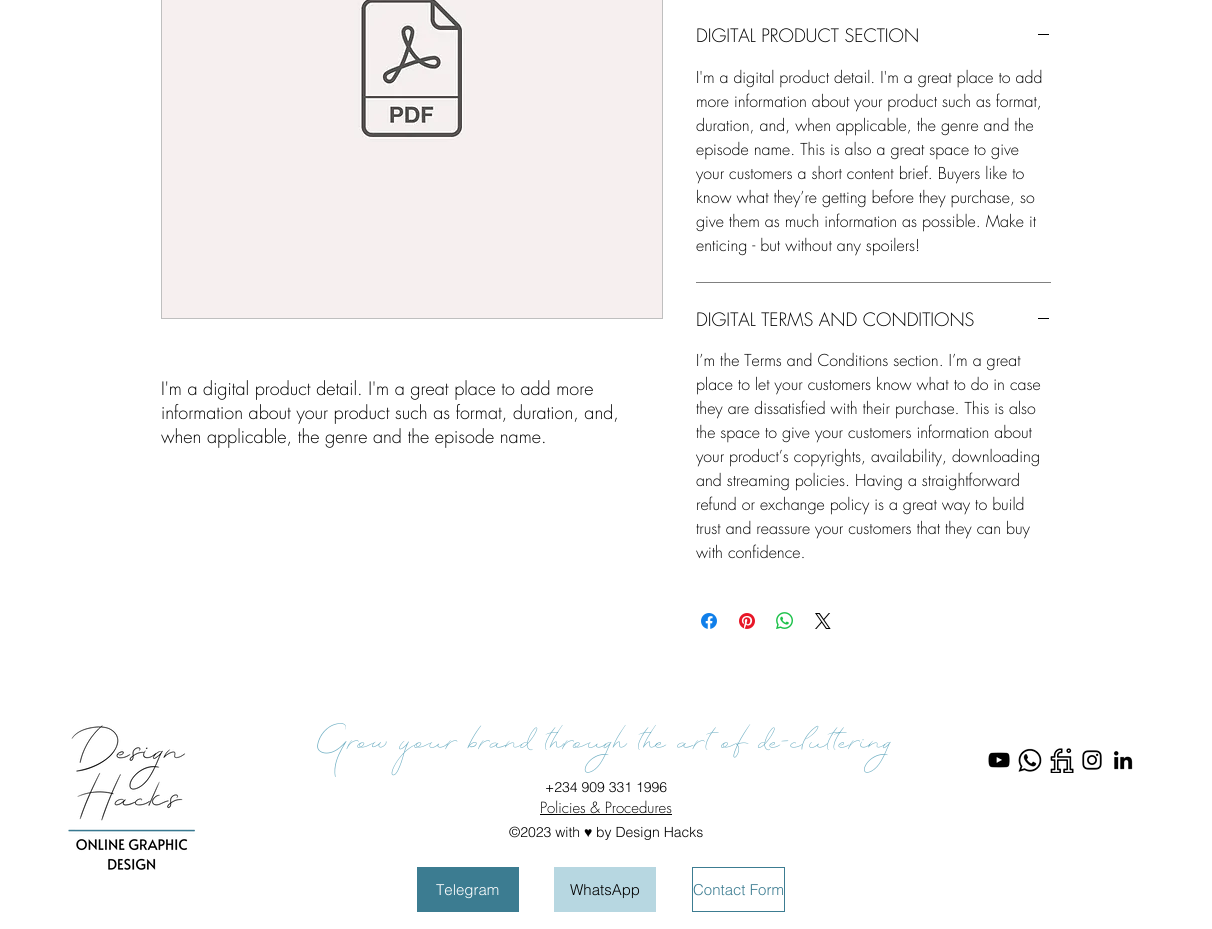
import math
import cairo

surface = cairo.ImageSurface(cairo.FORMAT_RGB24, 1212, 929)
cr = cairo.Context(surface)
options = cairo.FontOptions()
options.set_hint_metrics(cairo.HINT_METRICS_OFF)
options.set_hint_style(cairo.HINT_STYLE_NONE)
cr.set_font_options(options)
cr.set_miter_limit(4)


def rgb(code):
    cr.set_source_rgb(*(v / 255 for v in bytes.fromhex(code[-6:])))


def image(path, x, y, w, h):
    cr.save()
    cr.set_source_surface(cairo.ImageSurface.create_from_png(path), x, y)
    cr.rectangle(x, y, w, h)
    cr.fill()
    cr.restore()


rgb("#ffffff")
cr.paint()
cr.rectangle(161.5, -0.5, 501, 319)
rgb("#bfbfbf")
cr.set_line_width(1)
cr.stroke()
image("img/1.png", 162, 0, 500, 318)
for x, y, w, h, color in [
    (696, 282, 355, 1, "#808080"),
    (1038, 34, 11, 1, "#000000"),
    (1038, 318, 11, 1, "#000000"),
]:
    rgb(color)
    cr.rectangle(x, y, w, h)
    cr.fill()
image("img/2.png", 701, 613, 16, 16)
image("img/3.png", 739, 613, 16, 16)
image("img/4.png", 776, 612, 17, 17)
image("img/5.png", 815, 613, 16, 16)
image("img/6.png", 68, 725, 127, 145)
image("img/7.png", 988, 752, 22, 16)
image("img/8.png", 1018, 748, 24, 24)
image("img/9.png", 1050, 748, 24, 25)
image("img/10.png", 1082, 750, 20, 20)
image("img/11.png", 1113, 751, 20, 19)
for x, y, w, h, color in [
    (540, 814, 132, 1, "#000000"),
    (417, 867, 102, 45, "#3c7c91"),
    (554, 867, 102, 45, "#b7d7e1"),
]:
    rgb(color)
    cr.rectangle(x, y, w, h)
    cr.fill()
cr.rectangle(692.5, 867.5, 92, 44)
rgb("#3c7c91")
cr.stroke()
cr.select_font_face("futura Light")
cr.set_font_size(18)
rgb("#000000")
for x, y, s in [
    (161, 395, "I'm a digital product detail. I'm a great place to add more"),
    (161, 419, "information about your product such as format, duration, and,"),
    (161, 443, "when applicable, the genre and the episode name."),
    (696, 42, "DIGITAL PRODUCT SECTION"),
]:
    cr.move_to(x, y)
    cr.show_text(s)
cr.set_font_size(16)
for x, y, s in [
    (696, 83, "I'm a digital product detail. I'm a great place to add"),
    (696, 107, "more information about your product such as format,"),
    (696, 131, "duration, and, when applicable, the genre and the"),
    (696, 155, "episode name. This is also a great space to give"),
    (696, 179, "your customers a short content brief. Buyers like to"),
    (696, 203, "know what they’re getting before they purchase, so"),
    (696, 227, "give them as much information as possible. Make it"),
    (696, 251, "enticing - but without any spoilers!"),
]:
    cr.move_to(x, y)
    cr.show_text(s)
cr.set_font_size(18)
cr.move_to(696, 326)
cr.show_text("DIGITAL TERMS AND CONDITIONS")
cr.set_font_size(16)
for x, y, s in [
    (696, 366, "I’m the Terms and Conditions section. I’m a great"),
    (696, 390, "place to let your customers know what to do in case"),
    (696, 414, "they are dissatisfied with their purchase. This is also"),
    (696, 438, "the space to give your customers information about"),
    (696, 462, "your product’s copyrights, availability, downloading"),
    (696, 486, "and streaming policies. Having a straightforward"),
    (696, 510, "refund or exchange policy is a great way to build"),
    (696, 534, "trust and reassure your customers that they can buy"),
    (696, 558, "with confidence."),
]:
    cr.move_to(x, y)
    cr.show_text(s)
cr.select_font_face("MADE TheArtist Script")
cr.set_font_size(40)
rgb("#6fafc3")
cr.move_to(318, 752)
cr.show_text("Grow your brand through the art of de-cluttering")
cr.select_font_face("helvetica Light")
cr.set_font_size(14)
rgb("#000000")
cr.move_to(545, 792)
cr.show_text("+234 909 331 1996")
cr.select_font_face("futura Light")
cr.set_font_size(15)
cr.move_to(540, 813)
cr.show_text("Policies & Procedures")
cr.select_font_face("helvetica Light")
cr.set_font_size(14)
cr.move_to(509, 837)
cr.show_text("©2023 with")
cr.select_font_face("Liberation Sans")
cr.move_to(584, 837)
cr.show_text("♥")
cr.select_font_face("helvetica Light")
cr.move_to(596, 837)
cr.show_text("by Design Hacks")
cr.set_font_size(15)
rgb("#ffffff")
cr.move_to(436, 895)
cr.show_text("Telegram")
rgb("#000000")
cr.move_to(570, 895)
cr.show_text("WhatsApp")
rgb("#3c7c91")
cr.move_to(693, 895)
cr.show_text("Contact Form")
surface.write_to_png("page.png")
